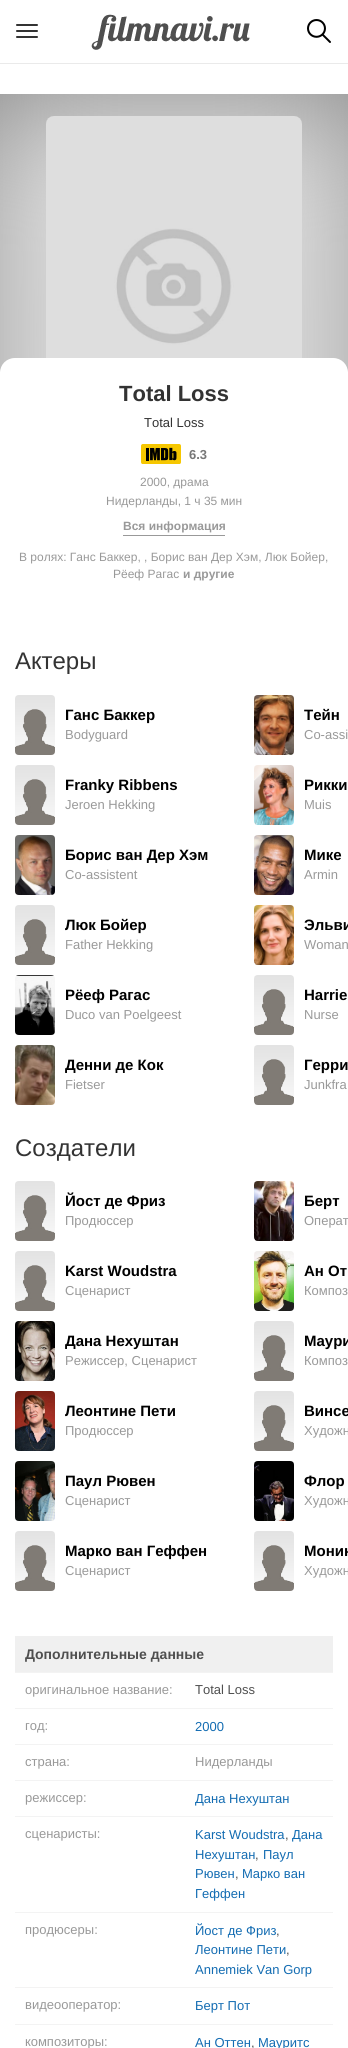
import math
import cairo

surface = cairo.ImageSurface(cairo.FORMAT_RGB24, 348, 2048)
cr = cairo.Context(surface)
options = cairo.FontOptions()
options.set_hint_metrics(cairo.HINT_METRICS_OFF)
options.set_hint_style(cairo.HINT_STYLE_NONE)
cr.set_font_options(options)
cr.set_miter_limit(4)


def rgb(code):
    cr.set_source_rgb(*(v / 255 for v in bytes.fromhex(code[-6:])))


def rrect(x, y, w, h, r):
    cr.new_sub_path()
    for i, (u, v) in enumerate([(x + w - r, y + h - r), (x + r, y + h - r), (x + r, y + r), (x + w - r, y + r)]):
        cr.arc(u, v, r, i * math.pi / 2, (i + 1) * math.pi / 2)
    cr.close_path()


def image(path, x, y, w, h):
    cr.save()
    cr.set_source_surface(cairo.ImageSurface.create_from_png(path), x, y)
    cr.rectangle(x, y, w, h)
    cr.fill()
    cr.restore()


rgb("#ffffff")
cr.paint()
rgb("#333333")
rrect(16, 24, 22, 2, 1)
cr.fill()
rrect(16, 30, 22, 2, 1)
cr.fill()
rrect(16, 36, 22, 2, 1)
cr.fill()
image("img/1.png", 91, 14, 159, 36)
image("img/2.png", 307, 19, 24, 24)
rgb("#eaeaea")
cr.rectangle(0, 63, 348, 1)
cr.fill()
rgb("#808080")
cr.rectangle(0, 94, 348, 278)
cr.fill()
image("img/3.png", 0, 94, 348, 278)
image("img/4.png", 46, 116, 256, 242)
rgb("#ffffff")
cr.new_path()
cr.move_to(15, 358)
cr.line_to(333, 358)
cr.curve_to(341.5, 358, 348, 364.5, 348, 373)
cr.line_to(348, 583)
cr.line_to(0, 583)
cr.line_to(0, 373)
cr.curve_to(0, 364.5, 6.5, 358, 15, 358)
cr.close_path()
cr.fill()
image("img/5.png", 141, 444, 40, 20)
rgb("#999999")
cr.rectangle(123, 535, 102, 1)
cr.fill()
image("img/6.png", 15, 695, 40, 60)
image("img/7.png", 254, 695, 40, 60)
image("img/6.png", 15, 765, 40, 60)
image("img/8.png", 254, 765, 40, 60)
image("img/9.png", 15, 835, 40, 60)
image("img/10.png", 254, 835, 40, 60)
image("img/6.png", 15, 905, 40, 60)
image("img/11.png", 254, 905, 40, 60)
image("img/12.png", 15, 975, 40, 60)
image("img/13.png", 254, 975, 40, 60)
image("img/14.png", 15, 1045, 40, 60)
image("img/13.png", 254, 1045, 40, 60)
image("img/6.png", 15, 1181, 40, 60)
image("img/15.png", 254, 1181, 40, 60)
image("img/6.png", 15, 1251, 40, 60)
image("img/16.png", 254, 1251, 40, 60)
image("img/17.png", 15, 1321, 40, 60)
image("img/13.png", 254, 1321, 40, 60)
image("img/18.png", 15, 1391, 40, 60)
image("img/13.png", 254, 1391, 40, 60)
image("img/19.png", 15, 1461, 40, 60)
image("img/20.png", 254, 1461, 40, 60)
image("img/6.png", 15, 1531, 40, 60)
image("img/13.png", 254, 1531, 40, 60)
for x, y, w, h, color in [
    (15, 1636, 318, 36, "#f0f0f0"),
    (15, 1672, 318, 1, "#f3f3f3"),
    (15, 1708, 318, 1, "#f3f3f3"),
    (15, 1744, 318, 1, "#f3f3f3"),
    (15, 1780, 318, 1, "#f3f3f3"),
    (15, 1816, 318, 1, "#f3f3f3"),
    (15, 1912, 318, 1, "#f3f3f3"),
    (15, 1987, 318, 1, "#f3f3f3"),
    (15, 2024, 318, 1, "#f3f3f3"),
]:
    rgb(color)
    cr.rectangle(x, y, w, h)
    cr.fill()
cr.select_font_face("Liberation Sans", cairo.FONT_SLANT_NORMAL, cairo.FONT_WEIGHT_BOLD)
cr.set_font_size(22)
rgb("#333333")
cr.move_to(119, 401)
cr.show_text("Total Loss")
cr.select_font_face("Liberation Sans")
cr.set_font_size(13)
cr.move_to(144, 427)
cr.show_text("Total Loss")
cr.select_font_face("Liberation Sans", cairo.FONT_SLANT_NORMAL, cairo.FONT_WEIGHT_BOLD)
rgb("#777777")
cr.move_to(189, 459)
cr.show_text("6.3")
cr.select_font_face("Liberation Sans")
cr.set_font_size(12)
rgb("#999999")
cr.move_to(140, 486)
cr.show_text("2000, драма")
cr.move_to(106, 505)
cr.show_text("Нидерланды, 1 ч 35 мин")
cr.select_font_face("Liberation Sans", cairo.FONT_SLANT_NORMAL, cairo.FONT_WEIGHT_BOLD)
cr.move_to(123, 530)
cr.show_text("Вся информация")
cr.select_font_face("Liberation Sans")
cr.move_to(19, 561)
cr.show_text("В ролях: Ганс Баккер, , Борис ван Дер Хэм, Люк Бойер,")
cr.move_to(113, 578)
cr.show_text("Рёеф Рагас")
cr.select_font_face("Liberation Sans", cairo.FONT_SLANT_NORMAL, cairo.FONT_WEIGHT_BOLD)
cr.move_to(183, 578)
cr.show_text("и другие")
cr.select_font_face("Liberation Sans")
cr.set_font_size(24)
rgb("#333333")
cr.move_to(15, 669)
cr.show_text("Актеры")
cr.select_font_face("Liberation Sans", cairo.FONT_SLANT_NORMAL, cairo.FONT_WEIGHT_BOLD)
cr.set_font_size(15)
rgb("#000000")
cr.move_to(65, 720)
cr.show_text("Ганс Баккер")
cr.select_font_face("Liberation Sans")
cr.set_font_size(13)
rgb("#999999")
cr.move_to(65, 739)
cr.show_text("Bodyguard")
cr.save()
cr.rectangle(304, 706, 44, 18)
cr.clip()
cr.select_font_face("Liberation Sans", cairo.FONT_SLANT_NORMAL, cairo.FONT_WEIGHT_BOLD)
cr.set_font_size(15)
rgb("#000000")
cr.move_to(304, 720)
cr.show_text("Тейн")
cr.restore()
cr.move_to(304, 739)
cr.show_text("Co-assi")
cr.select_font_face("Liberation Sans", cairo.FONT_SLANT_NORMAL, cairo.FONT_WEIGHT_BOLD)
cr.set_font_size(15)
rgb("#000000")
cr.move_to(65, 790)
cr.show_text("Franky Ribbens")
cr.select_font_face("Liberation Sans")
cr.set_font_size(13)
rgb("#999999")
cr.move_to(65, 809)
cr.show_text("Jeroen Hekking")
cr.select_font_face("Liberation Sans", cairo.FONT_SLANT_NORMAL, cairo.FONT_WEIGHT_BOLD)
cr.set_font_size(15)
rgb("#000000")
cr.move_to(304, 790)
cr.show_text("Рикки")
cr.select_font_face("Liberation Sans")
cr.set_font_size(13)
rgb("#999999")
cr.move_to(304, 809)
cr.show_text("Muis")
cr.select_font_face("Liberation Sans", cairo.FONT_SLANT_NORMAL, cairo.FONT_WEIGHT_BOLD)
cr.set_font_size(15)
rgb("#000000")
cr.move_to(65, 860)
cr.show_text("Борис ван Дер Хэм")
cr.select_font_face("Liberation Sans")
cr.set_font_size(13)
rgb("#999999")
cr.move_to(65, 879)
cr.show_text("Co-assistent")
cr.select_font_face("Liberation Sans", cairo.FONT_SLANT_NORMAL, cairo.FONT_WEIGHT_BOLD)
cr.set_font_size(15)
rgb("#000000")
cr.move_to(304, 860)
cr.show_text("Мике")
cr.select_font_face("Liberation Sans")
cr.set_font_size(13)
rgb("#999999")
cr.move_to(304, 879)
cr.show_text("Armin")
cr.select_font_face("Liberation Sans", cairo.FONT_SLANT_NORMAL, cairo.FONT_WEIGHT_BOLD)
cr.set_font_size(15)
rgb("#000000")
cr.move_to(65, 930)
cr.show_text("Люк Бойер")
cr.select_font_face("Liberation Sans")
cr.set_font_size(13)
rgb("#999999")
cr.move_to(65, 949)
cr.show_text("Father Hekking")
cr.select_font_face("Liberation Sans", cairo.FONT_SLANT_NORMAL, cairo.FONT_WEIGHT_BOLD)
cr.set_font_size(15)
rgb("#000000")
cr.move_to(304, 930)
cr.show_text("Эльви")
cr.select_font_face("Liberation Sans")
cr.set_font_size(13)
rgb("#999999")
cr.move_to(304, 949)
cr.show_text("Woman")
cr.select_font_face("Liberation Sans", cairo.FONT_SLANT_NORMAL, cairo.FONT_WEIGHT_BOLD)
cr.set_font_size(15)
rgb("#000000")
cr.move_to(65, 1000)
cr.show_text("Рёеф Рагас")
cr.select_font_face("Liberation Sans")
cr.set_font_size(13)
rgb("#999999")
cr.move_to(65, 1019)
cr.show_text("Duco van Poelgeest")
cr.select_font_face("Liberation Sans", cairo.FONT_SLANT_NORMAL, cairo.FONT_WEIGHT_BOLD)
cr.set_font_size(15)
rgb("#000000")
cr.move_to(304, 1000)
cr.show_text("Harrie")
cr.select_font_face("Liberation Sans")
cr.set_font_size(13)
rgb("#999999")
cr.move_to(304, 1019)
cr.show_text("Nurse")
cr.select_font_face("Liberation Sans", cairo.FONT_SLANT_NORMAL, cairo.FONT_WEIGHT_BOLD)
cr.set_font_size(15)
rgb("#000000")
cr.move_to(65, 1070)
cr.show_text("Денни де Кок")
cr.select_font_face("Liberation Sans")
cr.set_font_size(13)
rgb("#999999")
cr.move_to(65, 1089)
cr.show_text("Fietser")
cr.select_font_face("Liberation Sans", cairo.FONT_SLANT_NORMAL, cairo.FONT_WEIGHT_BOLD)
cr.set_font_size(15)
rgb("#000000")
cr.move_to(304, 1070)
cr.show_text("Герри")
cr.select_font_face("Liberation Sans")
cr.set_font_size(13)
rgb("#999999")
cr.move_to(304, 1089)
cr.show_text("Junkfra")
cr.set_font_size(24)
rgb("#333333")
cr.move_to(15, 1156)
cr.show_text("Создатели")
cr.select_font_face("Liberation Sans", cairo.FONT_SLANT_NORMAL, cairo.FONT_WEIGHT_BOLD)
cr.set_font_size(15)
rgb("#000000")
cr.move_to(65, 1206)
cr.show_text("Йост де Фриз")
cr.select_font_face("Liberation Sans")
cr.set_font_size(13)
rgb("#999999")
cr.move_to(65, 1225)
cr.show_text("Продюссер")
cr.select_font_face("Liberation Sans", cairo.FONT_SLANT_NORMAL, cairo.FONT_WEIGHT_BOLD)
cr.set_font_size(15)
rgb("#000000")
cr.move_to(304, 1206)
cr.show_text("Берт")
cr.select_font_face("Liberation Sans")
cr.set_font_size(13)
rgb("#999999")
cr.move_to(304, 1225)
cr.show_text("Операт")
cr.select_font_face("Liberation Sans", cairo.FONT_SLANT_NORMAL, cairo.FONT_WEIGHT_BOLD)
cr.set_font_size(15)
rgb("#000000")
cr.move_to(65, 1276)
cr.show_text("Karst Woudstra")
cr.select_font_face("Liberation Sans")
cr.set_font_size(13)
rgb("#999999")
cr.move_to(65, 1295)
cr.show_text("Сценарист")
cr.select_font_face("Liberation Sans", cairo.FONT_SLANT_NORMAL, cairo.FONT_WEIGHT_BOLD)
cr.set_font_size(15)
rgb("#000000")
cr.move_to(304, 1276)
cr.show_text("Ан От")
cr.select_font_face("Liberation Sans")
cr.set_font_size(13)
rgb("#999999")
cr.move_to(304, 1295)
cr.show_text("Композ")
cr.select_font_face("Liberation Sans", cairo.FONT_SLANT_NORMAL, cairo.FONT_WEIGHT_BOLD)
cr.set_font_size(15)
rgb("#000000")
cr.move_to(65, 1346)
cr.show_text("Дана Нехуштан")
cr.select_font_face("Liberation Sans")
cr.set_font_size(13)
rgb("#999999")
cr.move_to(65, 1365)
cr.show_text("Режиссер, Сценарист")
cr.select_font_face("Liberation Sans", cairo.FONT_SLANT_NORMAL, cairo.FONT_WEIGHT_BOLD)
cr.set_font_size(15)
rgb("#000000")
cr.move_to(304, 1346)
cr.show_text("Маури")
cr.select_font_face("Liberation Sans")
cr.set_font_size(13)
rgb("#999999")
cr.move_to(304, 1365)
cr.show_text("Композ")
cr.select_font_face("Liberation Sans", cairo.FONT_SLANT_NORMAL, cairo.FONT_WEIGHT_BOLD)
cr.set_font_size(15)
rgb("#000000")
cr.move_to(65, 1416)
cr.show_text("Леонтине Пети")
cr.select_font_face("Liberation Sans")
cr.set_font_size(13)
rgb("#999999")
cr.move_to(65, 1435)
cr.show_text("Продюссер")
cr.select_font_face("Liberation Sans", cairo.FONT_SLANT_NORMAL, cairo.FONT_WEIGHT_BOLD)
cr.set_font_size(15)
rgb("#000000")
cr.move_to(304, 1416)
cr.show_text("Винсе")
cr.select_font_face("Liberation Sans")
cr.set_font_size(13)
rgb("#999999")
cr.move_to(304, 1435)
cr.show_text("Художн")
cr.select_font_face("Liberation Sans", cairo.FONT_SLANT_NORMAL, cairo.FONT_WEIGHT_BOLD)
cr.set_font_size(15)
rgb("#000000")
cr.move_to(65, 1486)
cr.show_text("Паул Рювен")
cr.select_font_face("Liberation Sans")
cr.set_font_size(13)
rgb("#999999")
cr.move_to(65, 1505)
cr.show_text("Сценарист")
cr.select_font_face("Liberation Sans", cairo.FONT_SLANT_NORMAL, cairo.FONT_WEIGHT_BOLD)
cr.set_font_size(15)
rgb("#000000")
cr.move_to(304, 1486)
cr.show_text("Флор")
cr.select_font_face("Liberation Sans")
cr.set_font_size(13)
rgb("#999999")
cr.move_to(304, 1505)
cr.show_text("Художн")
cr.select_font_face("Liberation Sans", cairo.FONT_SLANT_NORMAL, cairo.FONT_WEIGHT_BOLD)
cr.set_font_size(15)
rgb("#000000")
cr.move_to(65, 1556)
cr.show_text("Марко ван Геффен")
cr.select_font_face("Liberation Sans")
cr.set_font_size(13)
rgb("#999999")
cr.move_to(65, 1575)
cr.show_text("Сценарист")
cr.select_font_face("Liberation Sans", cairo.FONT_SLANT_NORMAL, cairo.FONT_WEIGHT_BOLD)
cr.set_font_size(15)
rgb("#000000")
cr.move_to(304, 1556)
cr.show_text("Моник")
cr.select_font_face("Liberation Sans")
cr.set_font_size(13)
rgb("#999999")
cr.move_to(304, 1575)
cr.show_text("Художн")
cr.select_font_face("Liberation Sans", cairo.FONT_SLANT_NORMAL, cairo.FONT_WEIGHT_BOLD)
cr.set_font_size(14)
rgb("#4f4f4f")
cr.move_to(25, 1659)
cr.show_text("Дополнительные данные")
cr.select_font_face("Liberation Sans")
cr.set_font_size(13)
rgb("#999999")
cr.move_to(25, 1694)
cr.show_text("оригинальное название:")
rgb("#4f4f4f")
cr.move_to(195, 1694)
cr.show_text("Total Loss")
rgb("#999999")
cr.move_to(25, 1730)
cr.show_text("год:")
rgb("#136cb2")
cr.move_to(195, 1731)
cr.show_text("2000")
rgb("#999999")
for x, y, s in [
    (25, 1766, "страна:"),
    (195, 1766, "Нидерланды"),
    (25, 1802, "режиссер:"),
]:
    cr.move_to(x, y)
    cr.show_text(s)
rgb("#136cb2")
cr.move_to(195, 1803)
cr.show_text("Дана Нехуштан")
rgb("#999999")
cr.move_to(25, 1838)
cr.show_text("сценаристы:")
rgb("#136cb2")
cr.move_to(195, 1839)
cr.show_text("Karst Woudstra")
rgb("#4f4f4f")
cr.move_to(285, 1839)
cr.show_text(",")
rgb("#136cb2")
cr.move_to(292, 1839)
cr.show_text("Дана")
cr.move_to(195, 1859)
cr.show_text("Нехуштан")
rgb("#4f4f4f")
cr.move_to(255, 1859)
cr.show_text(",")
rgb("#136cb2")
cr.move_to(263, 1859)
cr.show_text("Паул")
cr.move_to(195, 1878)
cr.show_text("Рювен")
rgb("#4f4f4f")
cr.move_to(235, 1878)
cr.show_text(",")
rgb("#136cb2")
cr.move_to(242, 1878)
cr.show_text("Марко ван")
cr.move_to(195, 1898)
cr.show_text("Геффен")
rgb("#999999")
cr.move_to(25, 1934)
cr.show_text("продюсеры:")
rgb("#136cb2")
cr.move_to(195, 1935)
cr.show_text("Йост де Фриз")
rgb("#4f4f4f")
cr.move_to(276, 1935)
cr.show_text(",")
rgb("#136cb2")
cr.move_to(195, 1954)
cr.show_text("Леонтине Пети")
rgb("#4f4f4f")
cr.move_to(286, 1954)
cr.show_text(",")
rgb("#136cb2")
cr.move_to(195, 1974)
cr.show_text("Annemiek Van Gorp")
rgb("#999999")
cr.move_to(25, 2009)
cr.show_text("видеооператор:")
rgb("#136cb2")
cr.move_to(195, 2010)
cr.show_text("Берт Пот")
rgb("#999999")
cr.move_to(25, 2046)
cr.show_text("композиторы:")
rgb("#136cb2")
cr.move_to(195, 2047)
cr.show_text("Ан Оттен")
rgb("#4f4f4f")
cr.move_to(251, 2047)
cr.show_text(",")
rgb("#136cb2")
cr.move_to(258, 2047)
cr.show_text("Мауритс")
surface.write_to_png("page.png")
